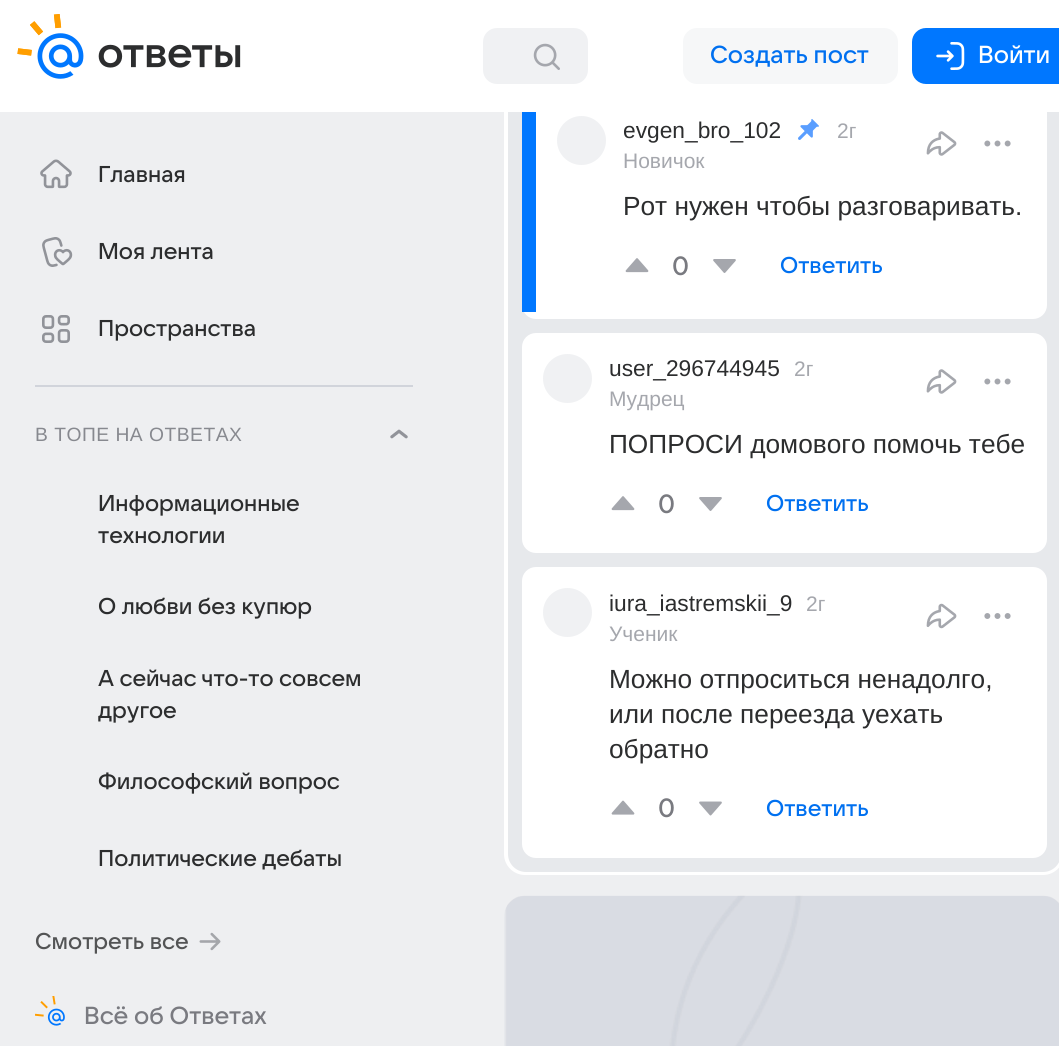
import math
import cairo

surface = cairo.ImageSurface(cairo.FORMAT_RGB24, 1059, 1046)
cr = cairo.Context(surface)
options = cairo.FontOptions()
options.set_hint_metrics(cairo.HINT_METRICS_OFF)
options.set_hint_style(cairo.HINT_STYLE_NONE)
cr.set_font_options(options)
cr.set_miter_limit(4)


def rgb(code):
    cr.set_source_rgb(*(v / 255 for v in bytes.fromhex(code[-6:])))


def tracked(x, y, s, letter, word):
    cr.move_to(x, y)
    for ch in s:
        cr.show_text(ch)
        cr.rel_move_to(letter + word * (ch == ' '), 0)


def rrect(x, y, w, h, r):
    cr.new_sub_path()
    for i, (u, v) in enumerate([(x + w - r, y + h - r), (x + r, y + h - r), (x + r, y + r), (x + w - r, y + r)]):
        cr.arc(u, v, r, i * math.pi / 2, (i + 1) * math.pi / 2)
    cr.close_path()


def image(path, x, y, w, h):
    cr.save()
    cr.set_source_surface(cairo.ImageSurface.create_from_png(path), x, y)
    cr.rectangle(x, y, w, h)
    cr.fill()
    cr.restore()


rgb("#eeeff1")
cr.paint()
rgb("#ffffff")
rrect(504, -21, 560, 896, 21)
cr.fill()
rgb("#e7e9ec")
rrect(508, 7, 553, 865, 18)
cr.fill()
rgb("#ffffff")
rrect(522, 88, 525, 231, 14)
cr.fill()
cr.rectangle(0, 0, 1059, 112)
cr.fill()
image("img/1.png", 17, 14, 224, 65)
rgb("#f0f1f3")
rrect(483, 28, 105, 56, 14)
cr.fill()
image("img/2.png", 533, 43, 27, 27)
rgb("#f6f7f8")
rrect(683, 28, 215, 56, 14)
cr.fill()
rgb("#0077ff")
rrect(912, 28, 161, 56, 14)
cr.fill()
image("img/3.png", 936, 42, 29, 28)
image("img/4.png", 40, 159, 32, 30)
image("img/5.png", 42, 237, 31, 30)
image("img/6.png", 42, 315, 28, 28)
rgb("#d1d4db")
cr.rectangle(35, 385, 378, 2)
cr.fill()
image("img/7.png", 390, 429, 18, 10)
image("img/8.png", 199, 932, 22, 19)
image("img/9.png", 35, 996, 30, 30)
rgb("#0077ff")
cr.rectangle(522, 112, 14, 200)
cr.fill()
rgb("#f0f1f3")
cr.arc(581.5, 140.5, 24.5, 0, 2 * math.pi)
cr.fill()
image("img/10.png", 798, 119, 21, 21)
image("img/11.png", 926, 131, 31, 25)
image("img/12.png", 984, 140, 27, 7)
image("img/13.png", 625, 258, 24, 15)
image("img/14.png", 713, 259, 23, 14)
rgb("#ffffff")
rrect(522, 333, 525, 220, 14)
cr.fill()
rgb("#f0f1f3")
cr.arc(567.5, 378.5, 24.5, 0, 2 * math.pi)
cr.fill()
image("img/11.png", 926, 369, 31, 25)
image("img/12.png", 984, 378, 27, 7)
image("img/13.png", 611, 496, 24, 15)
image("img/14.png", 699, 497, 23, 14)
rgb("#ffffff")
rrect(522, 567, 525, 291, 14)
cr.fill()
rgb("#f0f1f3")
cr.arc(567.5, 612.5, 24.5, 0, 2 * math.pi)
cr.fill()
image("img/15.png", 926, 603, 31, 26)
image("img/16.png", 984, 613, 27, 6)
image("img/17.png", 611, 800, 24, 15)
image("img/18.png", 699, 801, 23, 15)
rgb("#e7e9ed")
rrect(504, 896, 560, 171, 21)
cr.fill()
image("img/19.png", 505, 895, 554, 151)
cr.select_font_face("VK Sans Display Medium")
cr.set_font_size(24.5)
rgb("#0070f0")
cr.move_to(710, 63)
cr.show_text("Создать пост")
rgb("#ffffff")
cr.move_to(978, 63)
cr.show_text("Войти")
cr.set_font_size(22.75)
rgb("#2c2d2e")
for x, y, s in [
    (98, 182, "Главная"),
    (98, 259, "Моя лента"),
    (98, 336, "Пространства"),
]:
    cr.move_to(x, y)
    cr.show_text(s)
cr.select_font_face("Liberation Sans")
cr.set_font_size(19.25)
rgb("#87898f")
tracked(35, 441, "В ТОПЕ НА ОТВЕТАХ", 0.5, 0)
cr.select_font_face("VK Sans Display Medium")
cr.set_font_size(22.75)
rgb("#2c2d2e")
for x, y, s in [
    (98, 511, "Информационные"),
    (98, 543, "технологии"),
    (98, 614, "О любви без купюр"),
    (98, 686, "А сейчас что-то совсем"),
    (98, 718, "другое"),
    (98, 789, "Философский вопрос"),
    (98, 866, "Политические дебаты"),
]:
    cr.move_to(x, y)
    cr.show_text(s)
rgb("#535455")
cr.move_to(35, 949)
cr.show_text("Смотреть все")
cr.set_font_size(24.5)
rgb("#797a80")
cr.move_to(84, 1024)
cr.show_text("Всё об Ответах")
cr.select_font_face("Liberation Sans")
cr.set_font_size(22.75)
rgb("#2c2d2e")
cr.move_to(623, 138)
cr.show_text("evgen_bro_102")
cr.set_font_size(21)
rgb("#a5a7ad")
cr.move_to(623, 168)
cr.show_text("Новичок")
cr.move_to(837, 138)
cr.show_text("2г")
cr.set_font_size(26.25)
rgb("#2c2d2e")
cr.move_to(623, 215)
cr.show_text("Рот нужен чтобы разговаривать.")
cr.select_font_face("VK Sans Display Medium")
rgb("#797a80")
cr.move_to(672, 275)
cr.show_text("0")
cr.set_font_size(22.75)
rgb("#0070f0")
cr.move_to(780, 273)
cr.show_text("Ответить")
cr.select_font_face("Liberation Sans")
rgb("#2c2d2e")
cr.move_to(609, 376)
cr.show_text("user_296744945")
cr.set_font_size(21)
rgb("#a5a7ad")
cr.move_to(609, 406)
cr.show_text("Мудрец")
cr.move_to(794, 376)
cr.show_text("2г")
cr.set_font_size(26.25)
rgb("#2c2d2e")
cr.move_to(609, 453)
cr.show_text("ПОПРОСИ домового помочь тебе")
cr.select_font_face("VK Sans Display Medium")
rgb("#797a80")
cr.move_to(658, 513)
cr.show_text("0")
cr.set_font_size(22.75)
rgb("#0070f0")
cr.move_to(766, 511)
cr.show_text("Ответить")
cr.select_font_face("Liberation Sans")
rgb("#2c2d2e")
cr.move_to(609, 611)
cr.show_text("iura_iastremskii_9")
cr.set_font_size(21)
rgb("#a5a7ad")
cr.move_to(609, 641)
cr.show_text("Ученик")
cr.move_to(806, 611)
cr.show_text("2г")
cr.set_font_size(26.25)
rgb("#2c2d2e")
for x, y, s in [
    (609, 688, "Можно отпроситься ненадолго,"),
    (609, 723, "или после переезда уехать"),
    (609, 758, "обратно"),
]:
    cr.move_to(x, y)
    cr.show_text(s)
cr.select_font_face("VK Sans Display Medium")
rgb("#797a80")
cr.move_to(658, 817)
cr.show_text("0")
cr.set_font_size(22.75)
rgb("#0070f0")
cr.move_to(766, 816)
cr.show_text("Ответить")
surface.write_to_png("page.png")
